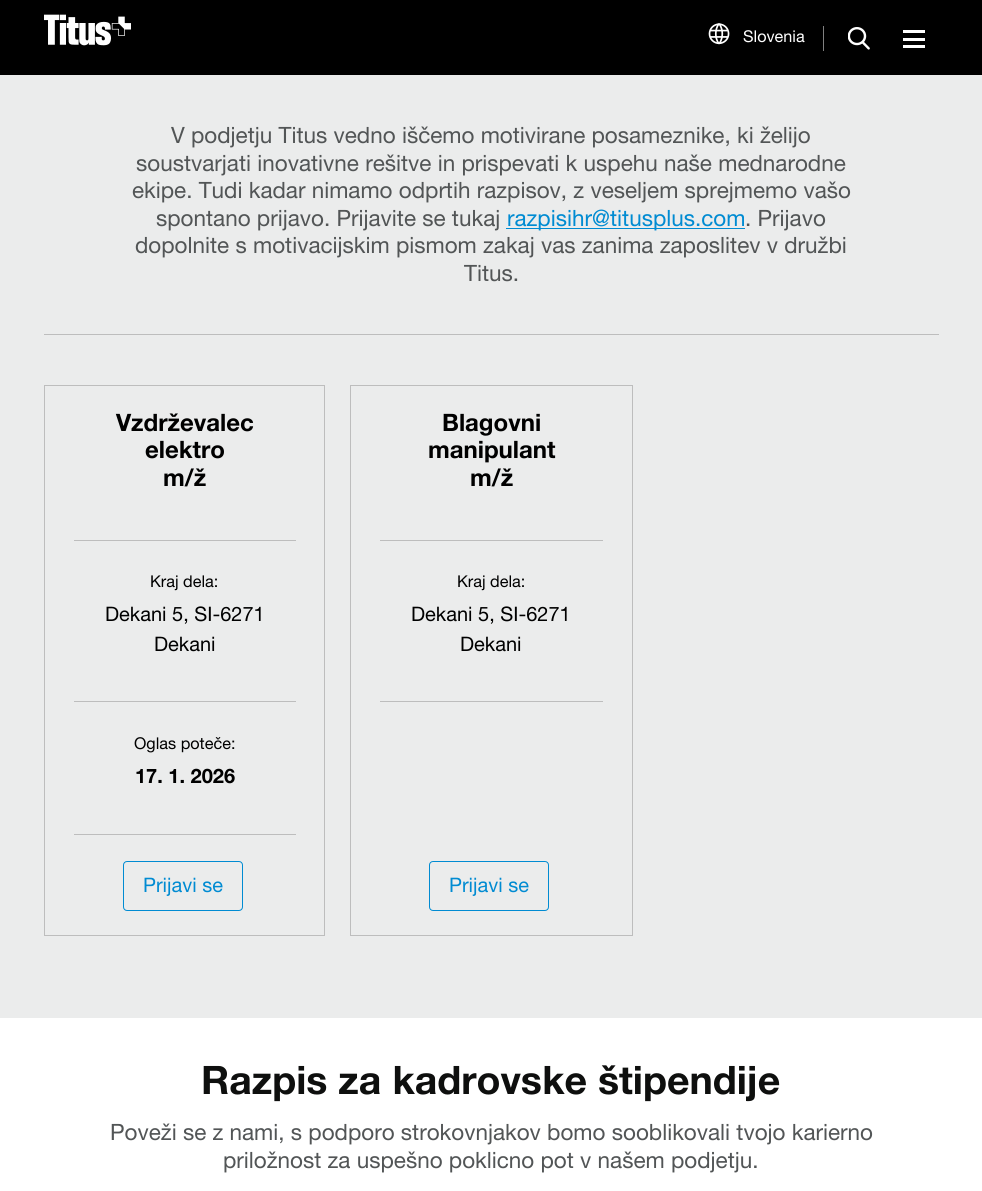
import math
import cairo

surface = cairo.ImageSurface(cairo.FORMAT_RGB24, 982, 1191)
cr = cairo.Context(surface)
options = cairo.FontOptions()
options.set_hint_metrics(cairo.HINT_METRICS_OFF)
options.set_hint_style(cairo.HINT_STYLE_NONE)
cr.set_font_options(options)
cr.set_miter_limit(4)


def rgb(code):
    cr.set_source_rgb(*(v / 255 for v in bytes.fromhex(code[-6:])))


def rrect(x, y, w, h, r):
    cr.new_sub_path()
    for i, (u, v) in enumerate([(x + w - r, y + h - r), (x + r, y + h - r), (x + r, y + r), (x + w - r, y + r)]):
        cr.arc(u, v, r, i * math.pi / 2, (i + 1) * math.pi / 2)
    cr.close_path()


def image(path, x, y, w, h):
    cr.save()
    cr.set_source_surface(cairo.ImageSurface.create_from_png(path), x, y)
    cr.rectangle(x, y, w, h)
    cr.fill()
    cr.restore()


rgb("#ffffff")
cr.paint()
rgb("#000000")
cr.rectangle(0, 0, 982, 75)
cr.fill()
image("img/1.png", 44, 14, 87, 32)
image("img/2.png", 708, 23, 22, 22)
rgb("#808080")
cr.rectangle(823, 26, 1, 25)
cr.fill()
image("img/3.png", 848, 27, 22, 23)
for x, y, w, h, color in [
    (903, 30, 22, 3, "#ffffff"),
    (903, 38, 22, 3, "#ffffff"),
    (903, 45, 22, 3, "#ffffff"),
    (0, 75, 982, 943, "#ebecec"),
    (506, 228, 239, 1, "#008bd2"),
    (44, 334, 895, 1, "#bdbdbd"),
]:
    rgb(color)
    cr.rectangle(x, y, w, h)
    cr.fill()
cr.rectangle(44.5, 385.5, 280, 550)
cr.set_line_width(1)
cr.stroke()
for x, y, w, h, color in [
    (74, 540, 222, 1, "#bdbdbd"),
    (74, 701, 222, 1, "#bdbdbd"),
    (74, 834, 222, 1, "#bdbdbd"),
]:
    rgb(color)
    cr.rectangle(x, y, w, h)
    cr.fill()
rrect(123.5, 861.5, 119, 49, 3.5)
rgb("#008bd2")
cr.stroke()
cr.rectangle(350.5, 385.5, 282, 550)
rgb("#bdbdbd")
cr.stroke()
cr.rectangle(380, 540, 223, 1)
cr.fill()
cr.rectangle(380, 701, 223, 1)
cr.fill()
rrect(429.5, 861.5, 119, 49, 3.5)
rgb("#008bd2")
cr.stroke()
cr.select_font_face("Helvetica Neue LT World")
cr.set_font_size(16.25)
rgb("#ffffff")
cr.move_to(743, 42)
cr.show_text("Slovenia")
cr.set_font_size(22.5)
rgb("#525556")
for x, y, s in [
    (171, 143, "V podjetju Titus vedno iščemo motivirane posameznike, ki želijo"),
    (136, 171, "soustvarjati inovativne rešitve in prispevati k uspehu naše mednarodne"),
    (132, 198, "ekipe. Tudi kadar nimamo odprtih razpisov, z veseljem sprejmemo vašo"),
    (156, 226, "spontano prijavo. Prijavite se tukaj"),
]:
    cr.move_to(x, y)
    cr.show_text(s)
rgb("#008bd2")
cr.move_to(507, 226)
cr.show_text("razpisihr@titusplus.com")
rgb("#525556")
for x, y, s in [
    (745, 226, ". Prijavo"),
    (135, 253, "dopolnite s motivacijskim pismom zakaj vas zanima zaposlitev v družbi"),
    (464, 281, "Titus."),
]:
    cr.move_to(x, y)
    cr.show_text(s)
cr.select_font_face("Helvetica Neue LT World", cairo.FONT_SLANT_NORMAL, cairo.FONT_WEIGHT_BOLD)
cr.set_font_size(24)
rgb("#000000")
for x, y, s in [
    (116, 431, "Vzdrževalec"),
    (145, 458, "elektro"),
    (163, 486, "m/ž"),
]:
    cr.move_to(x, y)
    cr.show_text(s)
cr.select_font_face("Helvetica Neue LT World")
cr.set_font_size(16.25)
cr.move_to(150, 587)
cr.show_text("Kraj dela:")
cr.set_font_size(20)
cr.move_to(105, 621)
cr.show_text("Dekani 5, SI-6271")
cr.move_to(154, 651)
cr.show_text("Dekani")
cr.set_font_size(16.25)
cr.move_to(134, 749)
cr.show_text("Oglas poteče:")
cr.select_font_face("Helvetica Neue LT World", cairo.FONT_SLANT_NORMAL, cairo.FONT_WEIGHT_BOLD)
cr.set_font_size(20)
cr.move_to(135, 783)
cr.show_text("17. 1. 2026")
cr.select_font_face("Helvetica Neue LT World")
rgb("#008bd2")
cr.move_to(143, 892)
cr.show_text("Prijavi se")
cr.select_font_face("Helvetica Neue LT World", cairo.FONT_SLANT_NORMAL, cairo.FONT_WEIGHT_BOLD)
cr.set_font_size(24)
rgb("#000000")
for x, y, s in [
    (442, 431, "Blagovni"),
    (428, 458, "manipulant"),
    (470, 486, "m/ž"),
]:
    cr.move_to(x, y)
    cr.show_text(s)
cr.select_font_face("Helvetica Neue LT World")
cr.set_font_size(16.25)
cr.move_to(457, 587)
cr.show_text("Kraj dela:")
cr.set_font_size(20)
cr.move_to(411, 621)
cr.show_text("Dekani 5, SI-6271")
cr.move_to(460, 651)
cr.show_text("Dekani")
rgb("#008bd2")
cr.move_to(449, 892)
cr.show_text("Prijavi se")
cr.select_font_face("Helvetica Neue LT World", cairo.FONT_SLANT_NORMAL, cairo.FONT_WEIGHT_BOLD)
cr.set_font_size(39.25)
rgb("#0e0f0e")
cr.move_to(201, 1094)
cr.show_text("Razpis za kadrovske štipendije")
cr.select_font_face("Helvetica Neue LT World")
cr.set_font_size(22.5)
rgb("#525556")
cr.move_to(110, 1140)
cr.show_text("Poveži se z nami, s podporo strokovnjakov bomo sooblikovali tvojo karierno")
cr.move_to(223, 1168)
cr.show_text("priložnost za uspešno poklicno pot v našem podjetju.")
surface.write_to_png("page.png")
